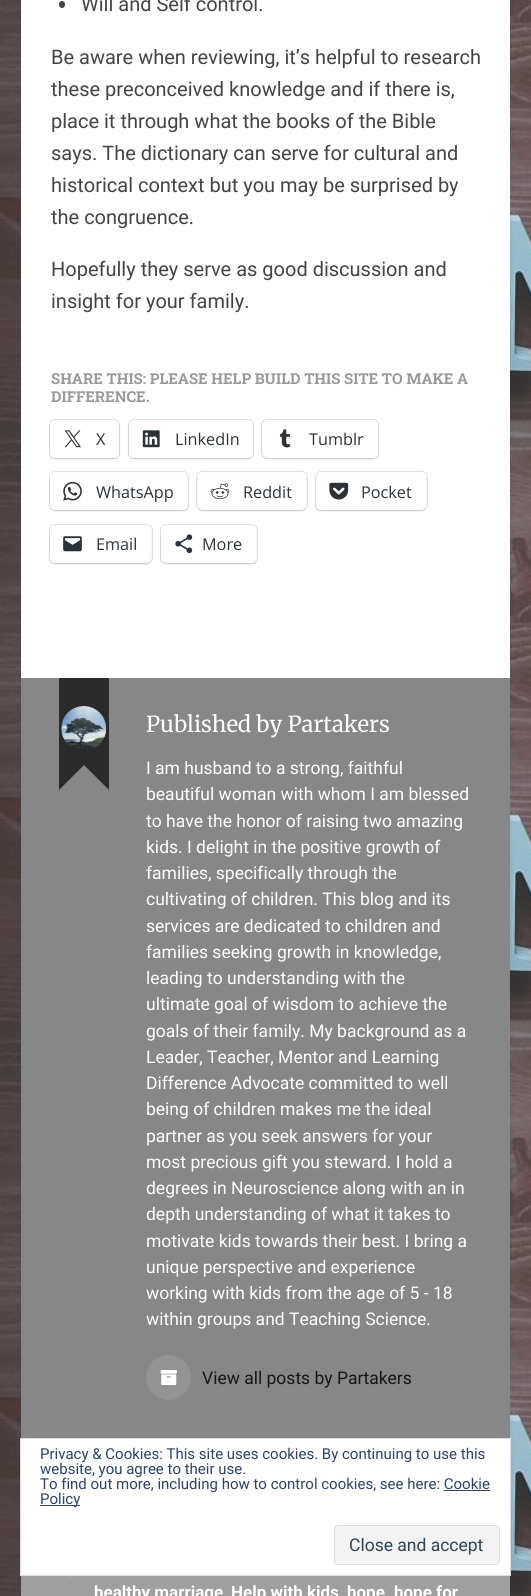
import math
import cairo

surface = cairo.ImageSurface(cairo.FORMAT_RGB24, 531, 1596)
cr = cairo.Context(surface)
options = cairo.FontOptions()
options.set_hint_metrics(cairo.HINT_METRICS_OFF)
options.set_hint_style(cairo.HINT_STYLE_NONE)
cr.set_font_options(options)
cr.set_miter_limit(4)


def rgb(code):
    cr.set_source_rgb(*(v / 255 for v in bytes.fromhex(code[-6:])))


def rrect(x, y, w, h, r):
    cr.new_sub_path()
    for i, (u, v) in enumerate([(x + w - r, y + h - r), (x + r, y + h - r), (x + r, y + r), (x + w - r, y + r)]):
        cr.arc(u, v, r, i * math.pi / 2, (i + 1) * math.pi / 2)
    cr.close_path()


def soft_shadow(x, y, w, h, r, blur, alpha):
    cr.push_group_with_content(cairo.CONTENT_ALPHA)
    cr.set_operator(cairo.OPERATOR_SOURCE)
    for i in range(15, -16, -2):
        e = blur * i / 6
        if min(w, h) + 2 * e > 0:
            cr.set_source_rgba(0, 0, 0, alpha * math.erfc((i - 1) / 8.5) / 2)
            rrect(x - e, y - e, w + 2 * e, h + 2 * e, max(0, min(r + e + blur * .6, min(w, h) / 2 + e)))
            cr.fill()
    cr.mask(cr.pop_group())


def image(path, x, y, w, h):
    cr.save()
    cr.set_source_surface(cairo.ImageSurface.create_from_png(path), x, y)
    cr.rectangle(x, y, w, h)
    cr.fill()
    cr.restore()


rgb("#ffffff")
cr.paint()
image("img/1.png", 0, 0, 531, 1596)
rgb("#000000")
soft_shadow(21, -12, 489, 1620, 4, 2.5, 0.1)
rgb("#ffffff")
cr.rectangle(21, 0, 489, 678)
cr.fill()
rgb("#444444")
rrect(59, 1, 6, 7, 3)
cr.fill()
rrect(49.5, 419.5, 70, 39, 5.5)
rgb("#e0e0e0")
cr.set_line_width(1)
cr.stroke()
rgb("#000000")
soft_shadow(50, 421, 69, 38, 5, 1, 0.12)
rgb("#ffffff")
rrect(50, 420, 69, 38, 5)
cr.fill()
image("img/2.png", 64, 430, 17, 18)
rrect(128.5, 419.5, 125, 39, 5.5)
rgb("#e0e0e0")
cr.stroke()
rgb("#000000")
soft_shadow(129, 421, 124, 38, 5, 1, 0.12)
rgb("#ffffff")
rrect(129, 420, 124, 38, 5)
cr.fill()
image("img/3.png", 142, 430, 18, 18)
rrect(261.5, 419.5, 117, 39, 5.5)
rgb("#e0e0e0")
cr.stroke()
rgb("#000000")
soft_shadow(263, 421, 115, 38, 5, 1, 0.12)
rgb("#ffffff")
rrect(263, 420, 115, 38, 5)
cr.fill()
image("img/4.png", 279, 429, 12, 19)
rrect(49.5, 471.5, 139, 39, 5.5)
rgb("#e0e0e0")
cr.stroke()
rgb("#000000")
soft_shadow(50, 474, 138, 37, 5, 1, 0.12)
rgb("#ffffff")
rrect(50, 473, 138, 37, 5)
cr.fill()
image("img/5.png", 63, 481, 19, 20)
rrect(196.5, 471.5, 111, 39, 5.5)
rgb("#e0e0e0")
cr.stroke()
rgb("#000000")
soft_shadow(198, 474, 108, 37, 5, 1, 0.12)
rgb("#ffffff")
rrect(198, 473, 108, 37, 5)
cr.fill()
image("img/6.png", 210, 483, 20, 17)
rrect(315.5, 471.5, 112, 39, 5.5)
rgb("#e0e0e0")
cr.stroke()
rgb("#000000")
soft_shadow(316, 474, 110, 37, 5, 1, 0.12)
rgb("#ffffff")
rrect(316, 473, 110, 37, 5)
cr.fill()
image("img/7.png", 329, 482, 20, 18)
rrect(49.5, 524.5, 103, 39, 5.5)
rgb("#e0e0e0")
cr.stroke()
rgb("#000000")
soft_shadow(50, 526, 101, 38, 5, 1, 0.12)
rgb("#ffffff")
rrect(50, 525, 101, 38, 5)
cr.fill()
image("img/8.png", 63, 536, 19, 16)
rrect(160.5, 524.5, 97, 39, 5.5)
rgb("#e0e0e0")
cr.stroke()
rgb("#000000")
soft_shadow(161, 526, 95, 38, 5, 1, 0.12)
rgb("#ffffff")
rrect(161, 525, 95, 38, 5)
cr.fill()
image("img/9.png", 175, 534, 18, 20)
rgb("#878787")
cr.rectangle(21, 678, 489, 760)
cr.fill()
rgb("#2a2a2a")
cr.new_path()
cr.move_to(109, 740)
cr.line_to(109, 790)
cr.line_to(84, 765)
cr.close_path()
cr.move_to(59, 790)
cr.line_to(59, 740)
cr.line_to(84, 765)
cr.close_path()
cr.fill()
cr.rectangle(59, 678, 50, 87)
cr.fill()
image("img/10.png", 61, 706, 46, 45)
rgb("#939393")
cr.arc(168.5, 1377.5, 22.5, 0, 2 * math.pi)
cr.fill()
image("img/11.png", 160, 1370, 17, 15)
rgb("#9f9f9f")
cr.rectangle(21, 1576, 489, 20)
cr.fill()
image("img/12.png", 69, 1576, 2, 1)
rgb("#ffffff")
cr.rectangle(20.5, 1438.5, 490, 137)
cr.fill_preserve()
rgb("#dedede")
cr.stroke()
rgb("#2e4467")
cr.rectangle(444, 1490, 46, 1)
cr.fill()
cr.rectangle(40, 1505, 40, 1)
cr.fill()
rgb("#f3f3f3")
rrect(334.5, 1525.5, 165, 39, 3.5)
cr.fill_preserve()
rgb("#dedede")
cr.stroke()
cr.select_font_face("Roboto")
cr.set_font_size(20)
rgb("#444444")
for x, y, s in [
    (81, 11, "Will and Self control."),
    (51, 64, "Be aware when reviewing, it’s helpful to research"),
    (51, 96, "these preconceived knowledge and if there is,"),
    (51, 128, "place it through what the books of the Bible"),
    (51, 160, "says. The dictionary can serve for cultural and"),
    (51, 192, "historical context but you may be surprised by"),
    (51, 224, "the congruence."),
    (51, 276, "Hopefully they serve as good discussion and"),
    (51, 308, "insight for your family."),
]:
    cr.move_to(x, y)
    cr.show_text(s)
cr.select_font_face("Roboto Slab", cairo.FONT_SLANT_NORMAL, cairo.FONT_WEIGHT_BOLD)
cr.set_font_size(15)
rgb("#999999")
cr.move_to(51, 384)
cr.show_text("SHARE THIS: PLEASE HELP BUILD THIS SITE TO MAKE A")
cr.move_to(51, 402)
cr.show_text("DIFFERENCE.")
cr.select_font_face("Open Sans")
cr.set_font_size(16.25)
rgb("#2c3338")
for x, y, s in [
    (96, 445, "X"),
    (175, 445, "LinkedIn"),
    (309, 445, "Tumblr"),
    (96, 498, "WhatsApp"),
    (243, 498, "Reddit"),
    (361, 498, "Pocket"),
    (96, 550, "Email"),
    (202, 550, "More"),
]:
    cr.move_to(x, y)
    cr.show_text(s)
cr.select_font_face("Merriweather Light")
cr.set_font_size(22)
rgb("#ffffff")
cr.move_to(146, 732)
cr.show_text("Published by Partakers")
cr.select_font_face("Roboto")
cr.set_font_size(17.5)
for x, y, s in [
    (146, 774, "I am husband to a strong, faithful"),
    (146, 800, "beautiful woman with whom I am blessed"),
    (146, 827, "to have the honor of raising two amazing"),
    (146, 853, "kids. I delight in the positive growth of"),
    (146, 879, "families, specifically through the"),
    (146, 905, "cultivating of children. This blog and its"),
    (146, 932, "services are dedicated to children and"),
    (146, 958, "families seeking growth in knowledge,"),
    (146, 984, "leading to understanding with the"),
    (146, 1010, "ultimate goal of wisdom to achieve the"),
    (146, 1037, "goals of their family. My background as a"),
    (146, 1063, "Leader, Teacher, Mentor and Learning"),
    (146, 1089, "Difference Advocate committed to well"),
    (146, 1115, "being of children makes me the ideal"),
    (146, 1142, "partner as you seek answers for your"),
    (146, 1168, "most precious gift you steward. I hold a"),
    (146, 1194, "degrees in Neuroscience along with an in"),
    (146, 1220, "depth understanding of what it takes to"),
    (146, 1247, "motivate kids towards their best. I bring a"),
    (146, 1273, "unique perspective and experience"),
    (146, 1299, "working with kids from the age of 5 - 18"),
    (146, 1325, "within groups and Teaching Science."),
]:
    cr.move_to(x, y)
    cr.show_text(s)
rgb("#161616")
cr.move_to(202, 1384)
cr.show_text("View all posts by Partakers")
cr.select_font_face("Roboto", cairo.FONT_SLANT_NORMAL, cairo.FONT_WEIGHT_BOLD)
cr.set_font_size(17)
rgb("#ffffff")
for x, y, s in [
    (94, 1598, "healthy marriage"),
    (231, 1598, "Help with kids"),
    (347, 1598, "hope"),
    (394, 1598, "hope for"),
]:
    cr.move_to(x, y)
    cr.show_text(s)
cr.select_font_face("Roboto")
cr.set_font_size(15)
rgb("#2e4467")
for x, y, s in [
    (40, 1459, "Privacy & Cookies: This site uses cookies. By continuing to use this"),
    (40, 1474, "website, you agree to their use."),
    (40, 1489, "To find out more, including how to control cookies, see here: Cookie"),
    (40, 1504, "Policy"),
]:
    cr.move_to(x, y)
    cr.show_text(s)
cr.set_font_size(17.5)
rgb("#2e4453")
cr.move_to(349, 1551)
cr.show_text("Close and accept")
surface.write_to_png("page.png")
